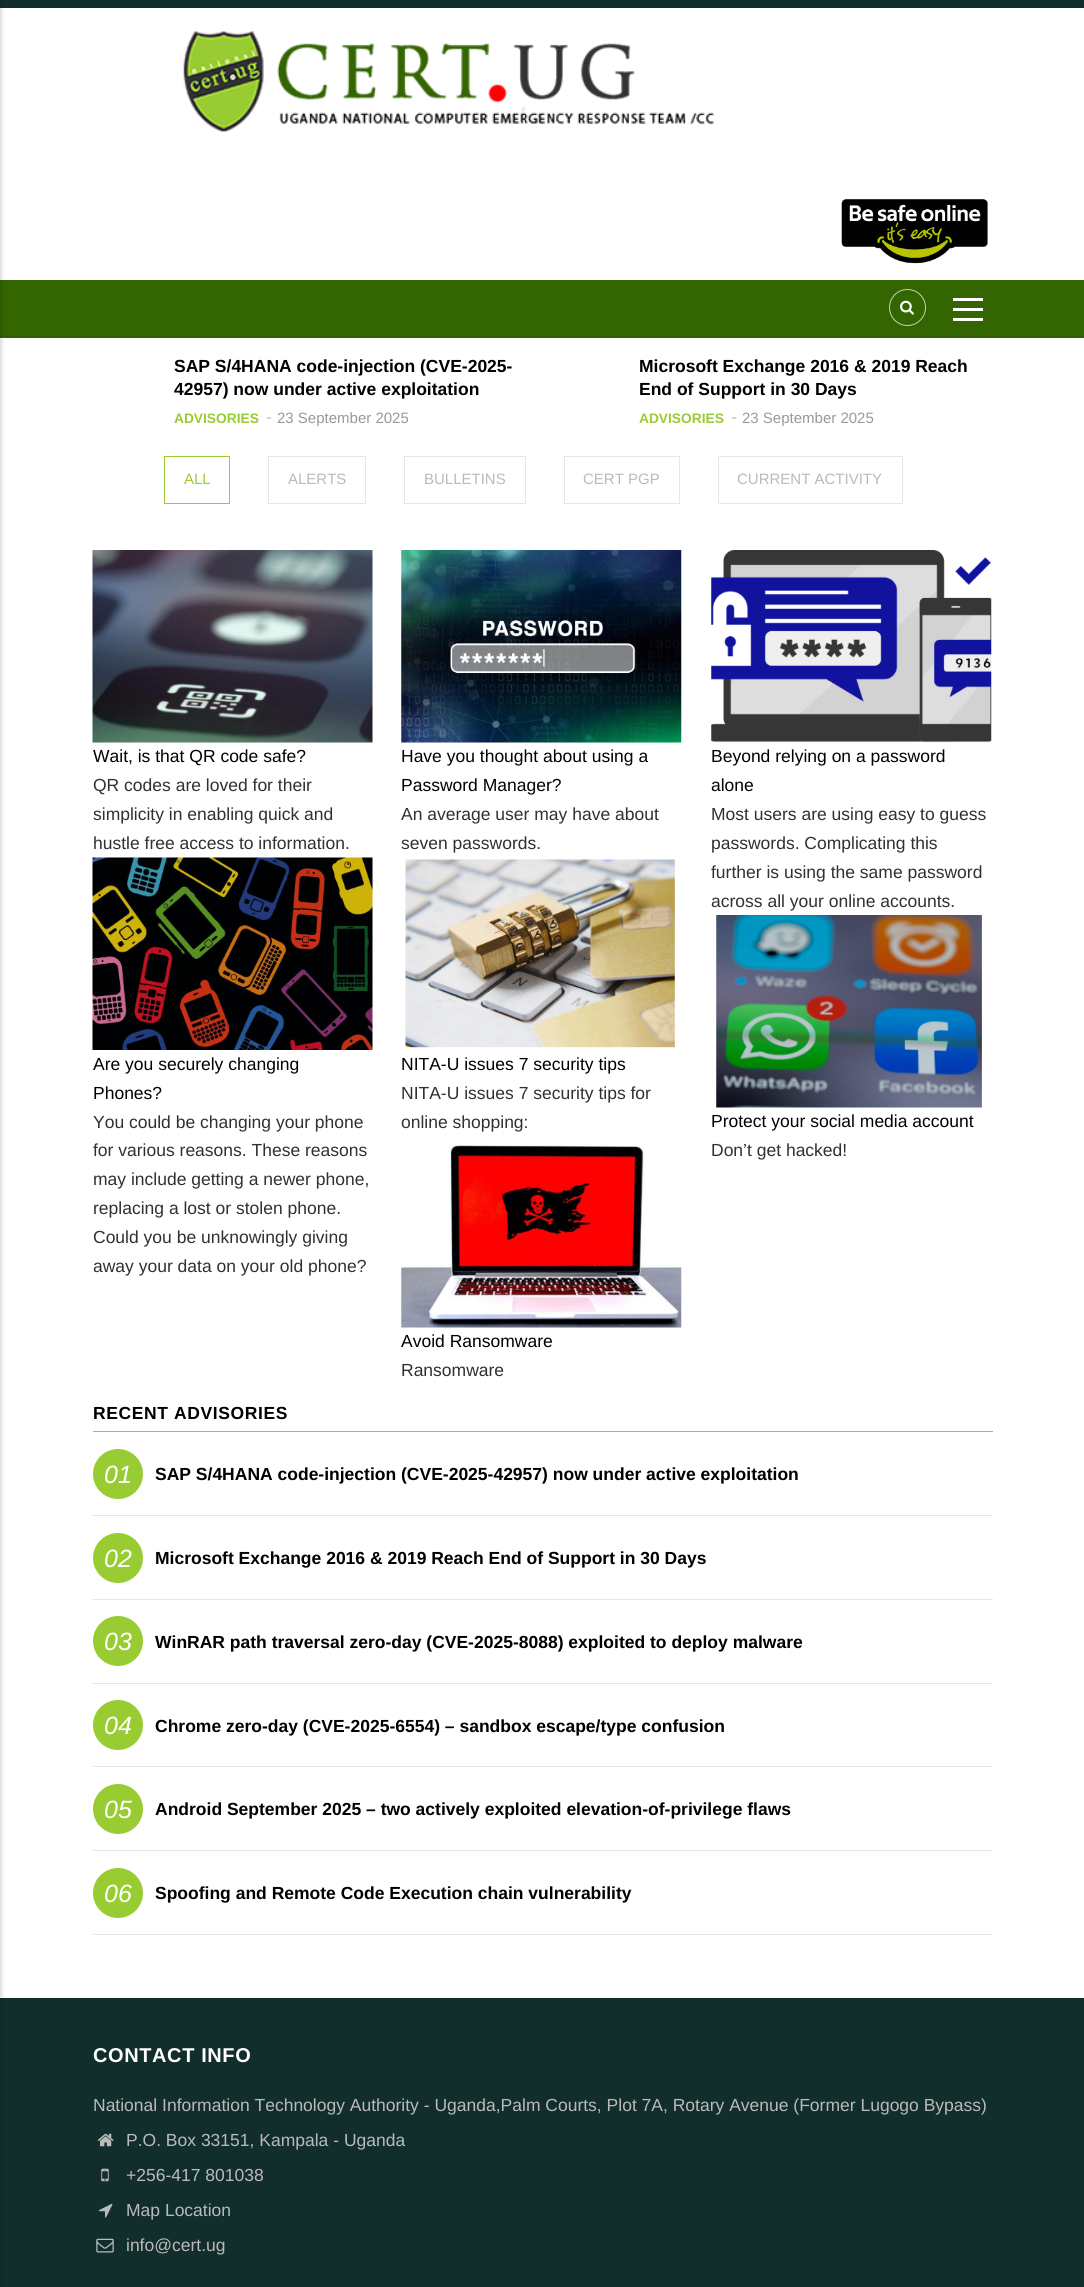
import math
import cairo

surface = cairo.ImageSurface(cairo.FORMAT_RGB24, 1084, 2287)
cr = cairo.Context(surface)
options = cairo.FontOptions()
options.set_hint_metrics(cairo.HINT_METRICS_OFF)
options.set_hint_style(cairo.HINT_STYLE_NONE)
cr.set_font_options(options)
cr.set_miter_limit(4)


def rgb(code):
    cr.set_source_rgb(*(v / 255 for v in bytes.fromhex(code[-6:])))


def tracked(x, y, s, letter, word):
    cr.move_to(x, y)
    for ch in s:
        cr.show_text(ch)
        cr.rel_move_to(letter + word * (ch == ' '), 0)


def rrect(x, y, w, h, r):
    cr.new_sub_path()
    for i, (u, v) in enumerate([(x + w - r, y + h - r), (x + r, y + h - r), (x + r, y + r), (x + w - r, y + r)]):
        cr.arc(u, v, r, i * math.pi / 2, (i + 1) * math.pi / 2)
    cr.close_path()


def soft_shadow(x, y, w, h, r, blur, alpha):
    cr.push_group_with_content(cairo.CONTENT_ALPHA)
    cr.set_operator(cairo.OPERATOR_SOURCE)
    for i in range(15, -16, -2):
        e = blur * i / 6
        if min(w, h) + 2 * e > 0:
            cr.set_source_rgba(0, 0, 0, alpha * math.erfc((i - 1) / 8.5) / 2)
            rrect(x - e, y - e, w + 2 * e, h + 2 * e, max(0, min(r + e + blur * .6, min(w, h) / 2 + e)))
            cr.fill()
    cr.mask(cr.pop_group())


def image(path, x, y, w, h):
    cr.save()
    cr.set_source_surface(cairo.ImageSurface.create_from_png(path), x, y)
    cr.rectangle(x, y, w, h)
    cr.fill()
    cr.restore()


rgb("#ffffff")
cr.paint()
for x, y, w, h, color in [
    (0, 0, 1084, 8, "#112e2c"),
    (0, 280, 1084, 58, "#336600"),
    (0, 336, 1084, 1, "#2e5c00"),
    (0, 1998, 1084, 289, "#112e2c"),
]:
    rgb(color)
    cr.rectangle(x, y, w, h)
    cr.fill()
rgb("#000000")
soft_shadow(-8, 4, 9, 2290, 0, 2.5, 0.2)
cr.arc(907.5, 307.5, 18, 0, 2 * math.pi)
rgb("#c2d1b3")
cr.set_line_width(1)
cr.stroke()
image("img/1.png", 900, 300, 14, 15)
for x, y, w, h, color in [
    (953, 298, 30, 3, "#ffffff"),
    (953, 308, 30, 3, "#ffffff"),
    (953, 318, 30, 3, "#ffffff"),
]:
    rgb(color)
    cr.rectangle(x, y, w, h)
    cr.fill()
image("img/2.png", 183, 31, 531, 101)
image("img/3.png", 841, 199, 147, 65)
rgb("#9c9c9c")
cr.new_path()
cr.move_to(269, 417.5)
cr.curve_to(270, 417.5, 271.5, 418, 271.5, 418)
cr.curve_to(271.5, 418.5, 270, 418.5, 269, 418.5)
cr.curve_to(267.5, 418.5, 266.5, 418.5, 266.5, 418)
cr.curve_to(266.5, 418, 267.5, 417.5, 269, 417.5)
cr.close_path()
cr.fill()
cr.new_path()
cr.move_to(734, 417.5)
cr.curve_to(735, 417.5, 736.5, 418, 736.5, 418)
cr.curve_to(736.5, 418.5, 735, 418.5, 734, 418.5)
cr.curve_to(732.5, 418.5, 731.5, 418.5, 731.5, 418)
cr.curve_to(731.5, 418, 732.5, 417.5, 734, 417.5)
cr.close_path()
cr.fill()
cr.rectangle(164.5, 456.5, 65, 47)
rgb("#99cc33")
cr.stroke()
cr.rectangle(268.5, 456.5, 97, 47)
rgb("#e6e6e6")
cr.stroke()
cr.rectangle(404.5, 456.5, 121, 47)
cr.stroke()
cr.rectangle(564.5, 456.5, 115, 47)
cr.stroke()
cr.rectangle(718.5, 456.5, 184, 47)
cr.stroke()
image("img/4.png", 92, 550, 281, 193)
image("img/5.png", 401, 550, 281, 193)
image("img/6.png", 711, 550, 281, 193)
image("img/7.png", 92, 857, 281, 193)
image("img/8.png", 405, 859, 270, 189)
image("img/9.png", 716, 915, 266, 193)
image("img/10.png", 401, 1144, 281, 184)
rgb("#99cc33")
cr.rectangle(93, 1431, 900, 1)
cr.fill()
rgb("#e6e6e6")
cr.rectangle(93, 1515, 900, 1)
cr.fill()
rgb("#99cc33")
cr.arc(118, 1474, 25, 0, 2 * math.pi)
cr.fill()
rgb("#e6e6e6")
cr.rectangle(93, 1599, 900, 1)
cr.fill()
rgb("#99cc33")
cr.arc(118, 1558, 25, 0, 2 * math.pi)
cr.fill()
rgb("#e6e6e6")
cr.rectangle(93, 1683, 900, 1)
cr.fill()
rgb("#99cc33")
cr.arc(118, 1641, 25, 0, 2 * math.pi)
cr.fill()
rgb("#e6e6e6")
cr.rectangle(93, 1766, 900, 1)
cr.fill()
rgb("#99cc33")
cr.arc(118, 1725, 25, 0, 2 * math.pi)
cr.fill()
rgb("#e6e6e6")
cr.rectangle(93, 1850, 900, 1)
cr.fill()
rgb("#99cc33")
cr.arc(118, 1809, 25, 0, 2 * math.pi)
cr.fill()
rgb("#e6e6e6")
cr.rectangle(93, 1934, 900, 1)
cr.fill()
rgb("#99cc33")
cr.arc(118, 1893, 25, 0, 2 * math.pi)
cr.fill()
image("img/11.png", 97, 2133, 17, 14)
image("img/12.png", 101, 2168, 8, 14)
image("img/13.png", 98, 2203, 15, 15)
image("img/14.png", 96, 2238, 18, 15)
cr.select_font_face("Liberation Sans", cairo.FONT_SLANT_NORMAL, cairo.FONT_WEIGHT_BOLD)
cr.set_font_size(17.5)
rgb("#000000")
cr.move_to(174, 372)
cr.show_text("SAP S/4HANA code-injection (CVE-2025-")
cr.move_to(174, 395)
cr.show_text("42957) now under active exploitation")
cr.set_font_size(13.75)
rgb("#99cc33")
cr.move_to(174, 423)
cr.show_text("ADVISORIES")
cr.select_font_face("Liberation Sans")
cr.set_font_size(15)
rgb("#999999")
cr.move_to(277, 423)
cr.show_text("23 September 2025")
cr.select_font_face("Liberation Sans", cairo.FONT_SLANT_NORMAL, cairo.FONT_WEIGHT_BOLD)
cr.set_font_size(17.5)
rgb("#000000")
cr.move_to(639, 372)
cr.show_text("Microsoft Exchange 2016 & 2019 Reach")
cr.move_to(639, 395)
cr.show_text("End of Support in 30 Days")
cr.set_font_size(13.75)
rgb("#99cc33")
cr.move_to(639, 423)
cr.show_text("ADVISORIES")
cr.select_font_face("Liberation Sans")
cr.set_font_size(15)
rgb("#999999")
cr.move_to(742, 423)
cr.show_text("23 September 2025")
rgb("#99cc33")
cr.move_to(184, 484)
cr.show_text("ALL")
rgb("#bababa")
for x, y, s in [
    (288, 484, "ALERTS"),
    (424, 484, "BULLETINS"),
    (583, 484, "CERT PGP"),
    (737, 484, "CURRENT ACTIVITY"),
]:
    cr.move_to(x, y)
    cr.show_text(s)
cr.set_font_size(17.5)
rgb("#000000")
cr.move_to(93, 762)
cr.show_text("Wait, is that QR code safe?")
rgb("#303030")
for x, y, s in [
    (93, 791, "QR codes are loved for their"),
    (93, 820, "simplicity in enabling quick and"),
    (93, 849, "hustle free access to information."),
]:
    cr.move_to(x, y)
    cr.show_text(s)
rgb("#000000")
cr.move_to(401, 762)
cr.show_text("Have you thought about using a")
cr.move_to(401, 791)
cr.show_text("Password Manager?")
rgb("#303030")
cr.move_to(401, 820)
cr.show_text("An average user may have about")
cr.move_to(401, 849)
cr.show_text("seven passwords.")
rgb("#000000")
cr.move_to(711, 762)
cr.show_text("Beyond relying on a password")
cr.move_to(711, 791)
cr.show_text("alone")
rgb("#303030")
for x, y, s in [
    (711, 820, "Most users are using easy to guess"),
    (711, 849, "passwords. Complicating this"),
    (711, 878, "further is using the same password"),
    (711, 907, "across all your online accounts."),
]:
    cr.move_to(x, y)
    cr.show_text(s)
rgb("#000000")
cr.move_to(93, 1070)
cr.show_text("Are you securely changing")
cr.move_to(93, 1099)
cr.show_text("Phones?")
rgb("#303030")
for x, y, s in [
    (93, 1128, "You could be changing your phone"),
    (93, 1156, "for various reasons. These reasons"),
    (93, 1185, "may include getting a newer phone,"),
    (93, 1214, "replacing a lost or stolen phone."),
    (93, 1243, "Could you be unknowingly giving"),
    (93, 1272, "away your data on your old phone?"),
]:
    cr.move_to(x, y)
    cr.show_text(s)
rgb("#000000")
cr.move_to(401, 1070)
cr.show_text("NITA-U issues 7 security tips")
rgb("#303030")
cr.move_to(401, 1099)
cr.show_text("NITA-U issues 7 security tips for")
cr.move_to(401, 1128)
cr.show_text("online shopping:")
rgb("#000000")
cr.move_to(711, 1127)
cr.show_text("Protect your social media account")
rgb("#303030")
cr.move_to(711, 1156)
cr.show_text("Don’t get hacked!")
rgb("#000000")
cr.move_to(401, 1347)
cr.show_text("Avoid Ransomware")
rgb("#303030")
cr.move_to(401, 1376)
cr.show_text("Ransomware")
cr.select_font_face("Liberation Sans", cairo.FONT_SLANT_NORMAL, cairo.FONT_WEIGHT_BOLD)
rgb("#000000")
tracked(93, 1419, "RECENT ADVISORIES", 0.6, 0)
cr.select_font_face("Liberation Sans", cairo.FONT_SLANT_ITALIC)
cr.set_font_size(25)
rgb("#ffffff")
cr.move_to(104, 1483)
cr.show_text("01")
cr.select_font_face("Liberation Sans", cairo.FONT_SLANT_NORMAL, cairo.FONT_WEIGHT_BOLD)
cr.set_font_size(17.5)
rgb("#000000")
cr.move_to(155, 1480)
cr.show_text("SAP S/4HANA code-injection (CVE-2025-42957) now under active exploitation")
cr.select_font_face("Liberation Sans", cairo.FONT_SLANT_ITALIC)
cr.set_font_size(25)
rgb("#ffffff")
cr.move_to(104, 1567)
cr.show_text("02")
cr.select_font_face("Liberation Sans", cairo.FONT_SLANT_NORMAL, cairo.FONT_WEIGHT_BOLD)
cr.set_font_size(17.5)
rgb("#000000")
cr.move_to(155, 1564)
cr.show_text("Microsoft Exchange 2016 & 2019 Reach End of Support in 30 Days")
cr.select_font_face("Liberation Sans", cairo.FONT_SLANT_ITALIC)
cr.set_font_size(25)
rgb("#ffffff")
cr.move_to(104, 1650)
cr.show_text("03")
cr.select_font_face("Liberation Sans", cairo.FONT_SLANT_NORMAL, cairo.FONT_WEIGHT_BOLD)
cr.set_font_size(17.5)
rgb("#000000")
cr.move_to(155, 1648)
cr.show_text("WinRAR path traversal zero-day (CVE-2025-8088) exploited to deploy malware")
cr.select_font_face("Liberation Sans", cairo.FONT_SLANT_ITALIC)
cr.set_font_size(25)
rgb("#ffffff")
cr.move_to(104, 1734)
cr.show_text("04")
cr.select_font_face("Liberation Sans", cairo.FONT_SLANT_NORMAL, cairo.FONT_WEIGHT_BOLD)
cr.set_font_size(17.5)
rgb("#000000")
cr.move_to(155, 1732)
cr.show_text("Chrome zero-day (CVE-2025-6554) – sandbox escape/type confusion")
cr.select_font_face("Liberation Sans", cairo.FONT_SLANT_ITALIC)
cr.set_font_size(25)
rgb("#ffffff")
cr.move_to(104, 1818)
cr.show_text("05")
cr.select_font_face("Liberation Sans", cairo.FONT_SLANT_NORMAL, cairo.FONT_WEIGHT_BOLD)
cr.set_font_size(17.5)
rgb("#000000")
cr.move_to(155, 1815)
cr.show_text("Android September 2025 – two actively exploited elevation-of-privilege flaws")
cr.select_font_face("Liberation Sans", cairo.FONT_SLANT_ITALIC)
cr.set_font_size(25)
rgb("#ffffff")
cr.move_to(104, 1902)
cr.show_text("06")
cr.select_font_face("Liberation Sans", cairo.FONT_SLANT_NORMAL, cairo.FONT_WEIGHT_BOLD)
cr.set_font_size(17.5)
rgb("#000000")
cr.move_to(155, 1899)
cr.show_text("Spoofing and Remote Code Execution chain vulnerability")
cr.set_font_size(20)
rgb("#ffffff")
tracked(93, 2062, "CONTACT INFO", 0.6, 0)
cr.select_font_face("Liberation Sans")
cr.set_font_size(17.5)
rgb("#bababa")
for x, y, s in [
    (93, 2111, "National Information Technology Authority - Uganda,Palm Courts, Plot 7A, Rotary Avenue (Former Lugogo Bypass)"),
    (126, 2146, "P.O. Box 33151, Kampala - Uganda"),
    (126, 2181, "+256-417 801038"),
    (126, 2216, "Map Location"),
    (126, 2251, "info@cert.ug"),
]:
    cr.move_to(x, y)
    cr.show_text(s)
surface.write_to_png("page.png")
